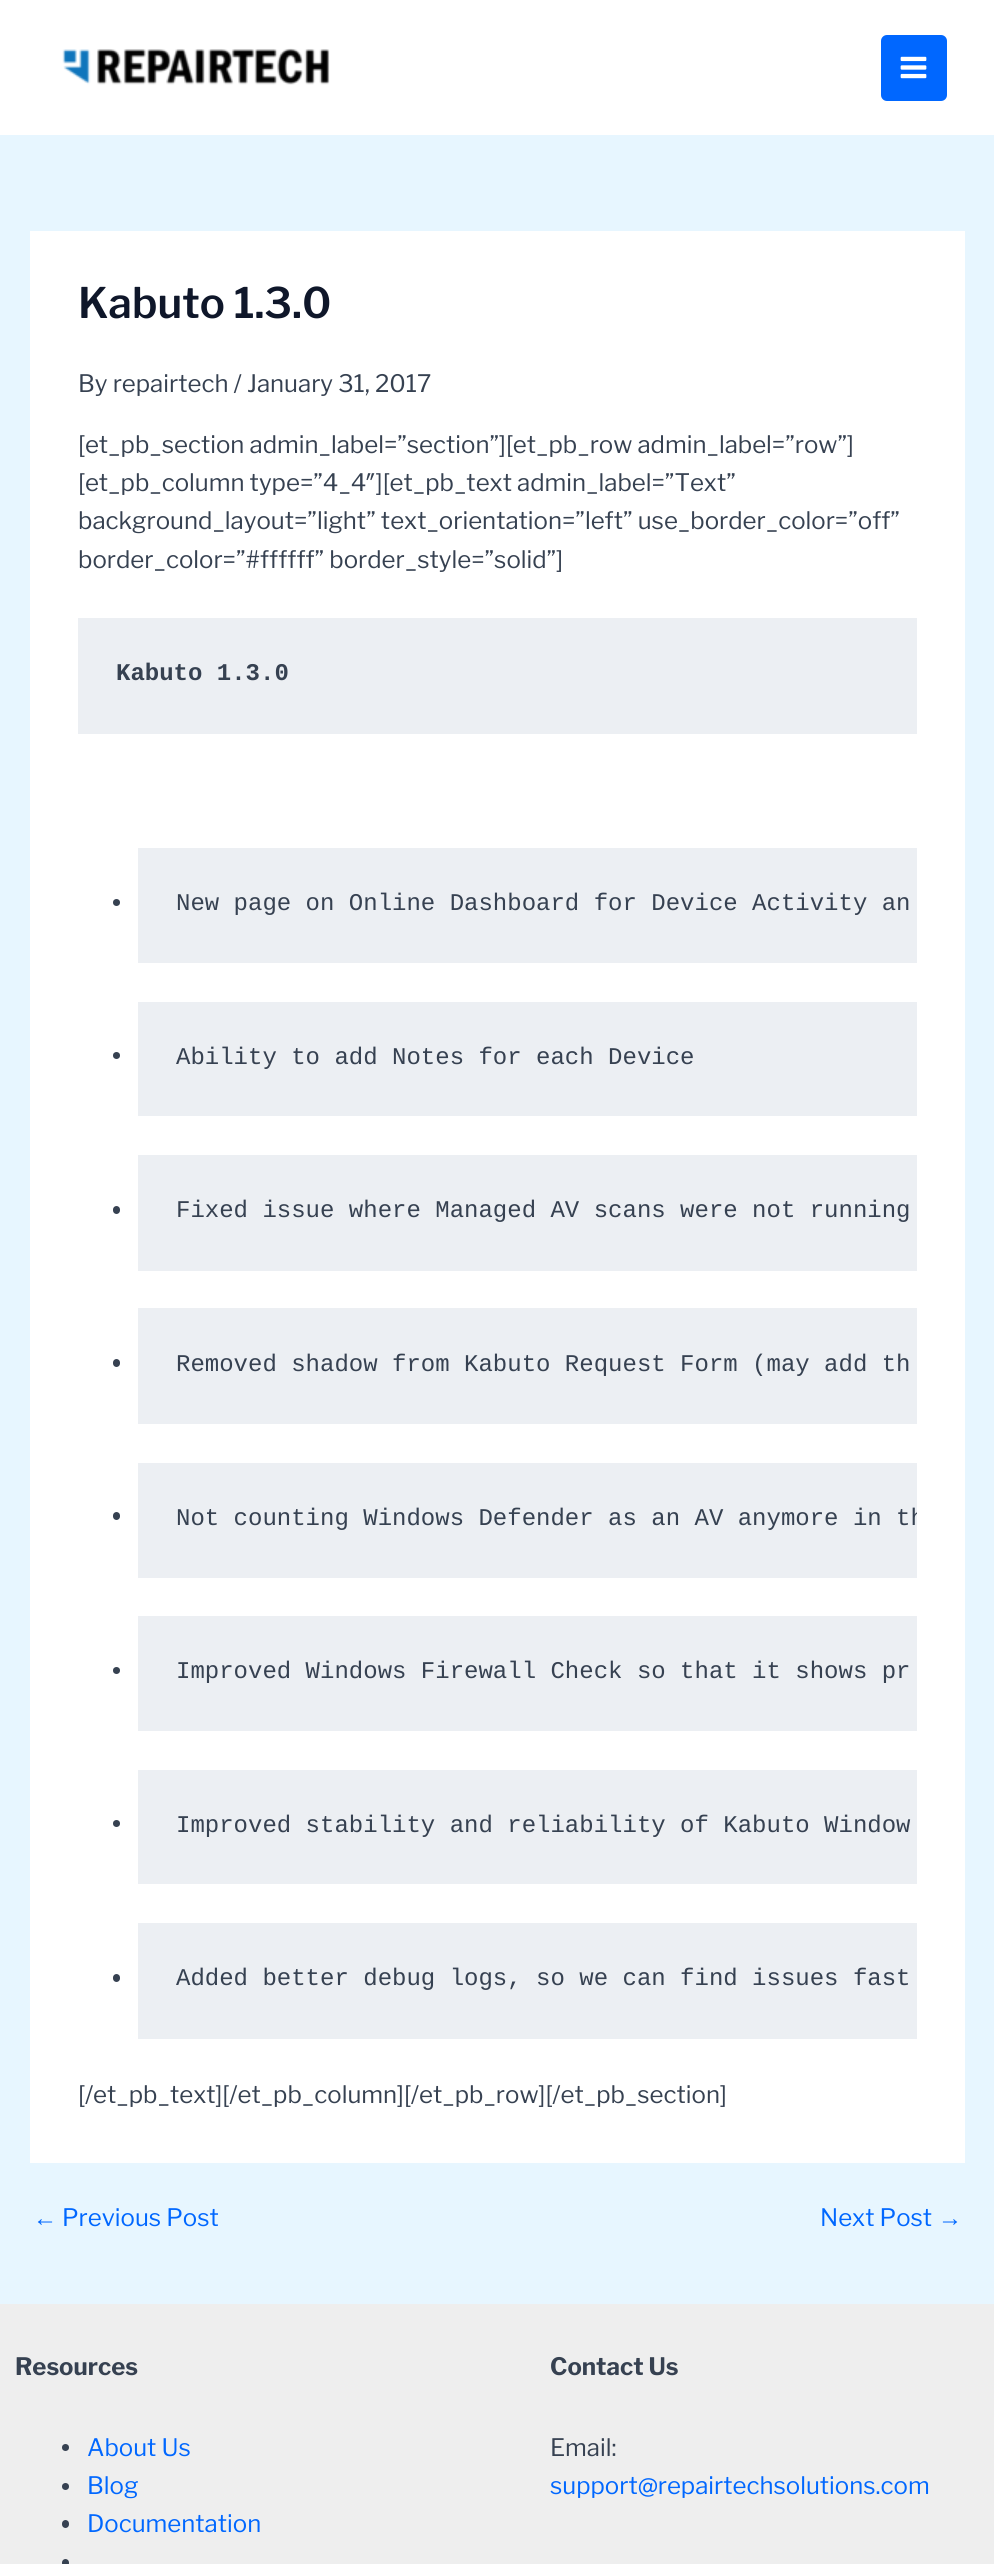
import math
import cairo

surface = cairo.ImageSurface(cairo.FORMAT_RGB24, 994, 2564)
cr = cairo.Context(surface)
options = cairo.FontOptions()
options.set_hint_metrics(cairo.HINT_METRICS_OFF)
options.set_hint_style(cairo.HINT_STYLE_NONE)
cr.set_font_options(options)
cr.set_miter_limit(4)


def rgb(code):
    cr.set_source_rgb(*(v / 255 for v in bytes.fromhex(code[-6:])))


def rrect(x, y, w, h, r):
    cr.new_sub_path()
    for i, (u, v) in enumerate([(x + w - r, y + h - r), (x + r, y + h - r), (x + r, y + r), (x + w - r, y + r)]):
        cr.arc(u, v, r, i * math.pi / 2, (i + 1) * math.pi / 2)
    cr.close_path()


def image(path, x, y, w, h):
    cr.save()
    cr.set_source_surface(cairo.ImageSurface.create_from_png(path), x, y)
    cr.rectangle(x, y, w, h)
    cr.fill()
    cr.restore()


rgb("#e7f6ff")
cr.paint()
rgb("#ffffff")
cr.rectangle(0, 0, 994, 135)
cr.fill()
image("img/1.png", 62, 48, 268, 37)
rgb("#0067ff")
rrect(881, 35, 66, 66, 6)
cr.fill()
image("img/2.png", 900, 56, 27, 23)
rgb("#ffffff")
cr.rectangle(30, 231, 935, 1932)
cr.fill()
rgb("#eceff3")
cr.rectangle(78, 618, 839, 116)
cr.fill()
rgb("#364151")
cr.arc(116.5, 902.5, 3.5, 0, 2 * math.pi)
cr.fill()
rgb("#eceff3")
cr.rectangle(138, 848, 779, 115)
cr.fill()
rgb("#364151")
cr.arc(116.5, 1055.5, 3.5, 0, 2 * math.pi)
cr.fill()
rgb("#eceff3")
cr.rectangle(138, 1002, 779, 114)
cr.fill()
rgb("#364151")
rrect(113, 1206, 7, 8, 3.5)
cr.fill()
rgb("#eceff3")
cr.rectangle(138, 1155, 779, 116)
cr.fill()
rgb("#364151")
rrect(113, 1359, 7, 8, 3.5)
cr.fill()
rgb("#eceff3")
cr.rectangle(138, 1308, 779, 116)
cr.fill()
rgb("#364151")
rrect(113, 1512, 7, 8, 3.5)
cr.fill()
rgb("#eceff3")
cr.rectangle(138, 1463, 779, 115)
cr.fill()
rgb("#364151")
cr.arc(116.5, 1670.5, 3.5, 0, 2 * math.pi)
cr.fill()
rgb("#eceff3")
cr.rectangle(138, 1616, 779, 115)
cr.fill()
rgb("#364151")
cr.arc(116.5, 1823.5, 3.5, 0, 2 * math.pi)
cr.fill()
rgb("#eceff3")
cr.rectangle(138, 1770, 779, 114)
cr.fill()
rgb("#364151")
rrect(113, 1974, 7, 8, 3.5)
cr.fill()
rgb("#eceff3")
cr.rectangle(138, 1923, 779, 116)
cr.fill()
rgb("#eeeeee")
cr.rectangle(0, 2304, 994, 260)
cr.fill()
rgb("#364151")
cr.arc(65.5, 2447.5, 3.5, 0, 2 * math.pi)
cr.fill()
cr.arc(65.5, 2486.5, 3.5, 0, 2 * math.pi)
cr.fill()
rrect(62, 2520, 7, 8, 3.5)
cr.fill()
rrect(62, 2559, 7, 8, 3.5)
cr.fill()
cr.select_font_face("Libre Franklin SemiBold")
cr.set_font_size(42)
rgb("#0f172a")
cr.move_to(78, 318)
cr.show_text("Kabuto 1.3.0")
cr.select_font_face("Libre Franklin")
cr.set_font_size(24)
rgb("#364151")
for x, y, s in [
    (78, 392, "By repairtech / January 31, 2017"),
    (78, 453, "[et_pb_section admin_label=”section”][et_pb_row admin_label=”row”]"),
    (78, 491, "[et_pb_column type=”4_4″][et_pb_text admin_label=”Text”"),
    (78, 529, "background_layout=”light” text_orientation=”left” use_border_color=”off”"),
    (78, 568, "border_color=”#ffffff” border_style=”solid”]"),
]:
    cr.move_to(x, y)
    cr.show_text(s)
cr.select_font_face("Liberation Mono", cairo.FONT_SLANT_NORMAL, cairo.FONT_WEIGHT_BOLD)
cr.move_to(116, 680)
cr.show_text("Kabuto 1.3.0")
cr.select_font_face("Liberation Mono")
for x, y, s in [
    (176, 910, "New page on Online Dashboard for Device Activity an"),
    (176, 1064, "Ability to add Notes for each Device"),
    (176, 1217, "Fixed issue where Managed AV scans were not running"),
    (176, 1371, "Removed shadow from Kabuto Request Form (may add th"),
]:
    cr.move_to(x, y)
    cr.show_text(s)
cr.save()
cr.rectangle(138, 1463, 779, 115)
cr.clip()
cr.move_to(176, 1525)
cr.show_text("Not counting Windows Defender as an AV anymore in th")
cr.restore()
for x, y, s in [
    (176, 1678, "Improved Windows Firewall Check so that it shows pr"),
    (176, 1832, "Improved stability and reliability of Kabuto Window"),
    (176, 1985, "Added better debug logs, so we can find issues fast"),
]:
    cr.move_to(x, y)
    cr.show_text(s)
cr.select_font_face("Libre Franklin")
cr.move_to(78, 2103)
cr.show_text("[/et_pb_text][/et_pb_column][/et_pb_row][/et_pb_section]")
cr.select_font_face("Liberation Sans")
rgb("#0067ff")
cr.move_to(33, 2226)
cr.show_text("←")
cr.select_font_face("Libre Franklin")
cr.move_to(62, 2226)
cr.show_text("Previous Post")
cr.move_to(820, 2226)
cr.show_text("Next Post")
cr.select_font_face("Liberation Sans")
cr.move_to(938, 2226)
cr.show_text("→")
cr.select_font_face("Libre Franklin", cairo.FONT_SLANT_NORMAL, cairo.FONT_WEIGHT_BOLD)
rgb("#364151")
cr.move_to(15, 2375)
cr.show_text("Resources")
cr.select_font_face("Libre Franklin")
rgb("#0067ff")
for x, y, s in [
    (87, 2456, "About Us"),
    (87, 2494, "Blog"),
    (87, 2532, "Documentation"),
]:
    cr.move_to(x, y)
    cr.show_text(s)
cr.select_font_face("Libre Franklin", cairo.FONT_SLANT_NORMAL, cairo.FONT_WEIGHT_BOLD)
rgb("#364151")
cr.move_to(550, 2375)
cr.show_text("Contact Us")
cr.select_font_face("Libre Franklin")
cr.move_to(550, 2456)
cr.show_text("Email:")
rgb("#0067ff")
cr.move_to(550, 2494)
cr.show_text("support@repairtechsolutions.com")
surface.write_to_png("page.png")
